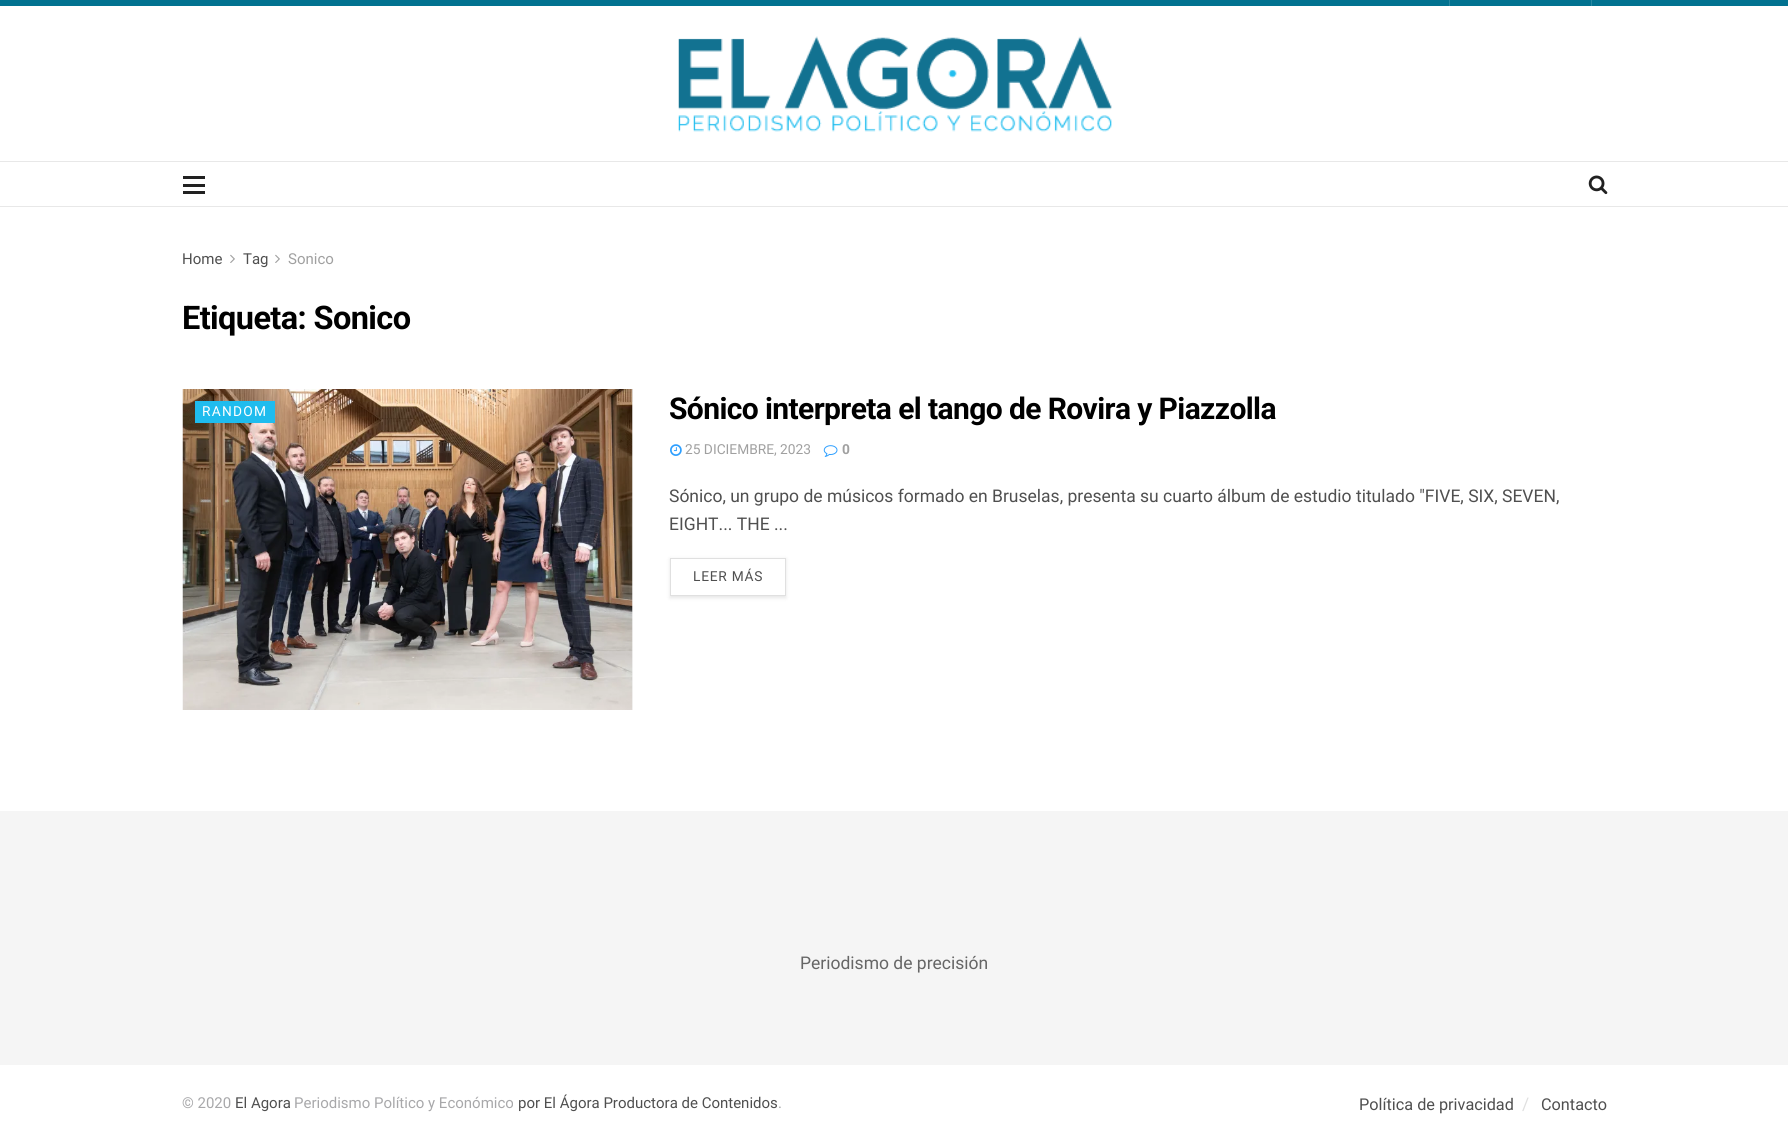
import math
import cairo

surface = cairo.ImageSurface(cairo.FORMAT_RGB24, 1788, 1137)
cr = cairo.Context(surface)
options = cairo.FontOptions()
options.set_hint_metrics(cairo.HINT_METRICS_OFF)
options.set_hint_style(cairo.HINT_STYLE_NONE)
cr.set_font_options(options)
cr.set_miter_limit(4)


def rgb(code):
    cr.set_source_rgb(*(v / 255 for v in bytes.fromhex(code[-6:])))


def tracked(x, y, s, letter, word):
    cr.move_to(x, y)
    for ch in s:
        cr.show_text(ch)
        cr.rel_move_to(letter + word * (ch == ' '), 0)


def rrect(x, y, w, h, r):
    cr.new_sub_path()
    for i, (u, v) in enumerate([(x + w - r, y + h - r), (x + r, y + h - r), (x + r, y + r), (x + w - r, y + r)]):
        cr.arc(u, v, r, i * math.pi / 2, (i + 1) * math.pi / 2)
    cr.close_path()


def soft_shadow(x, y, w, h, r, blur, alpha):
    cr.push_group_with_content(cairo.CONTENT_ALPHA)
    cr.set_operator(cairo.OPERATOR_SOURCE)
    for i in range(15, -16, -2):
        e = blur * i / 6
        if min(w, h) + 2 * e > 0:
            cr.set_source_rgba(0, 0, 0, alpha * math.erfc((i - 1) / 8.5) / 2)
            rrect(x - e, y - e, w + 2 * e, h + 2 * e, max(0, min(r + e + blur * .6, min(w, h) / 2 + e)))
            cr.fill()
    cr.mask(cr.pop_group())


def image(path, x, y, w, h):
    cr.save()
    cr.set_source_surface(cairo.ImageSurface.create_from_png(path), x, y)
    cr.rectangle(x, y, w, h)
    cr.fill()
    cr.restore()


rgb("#ffffff")
cr.paint()
for x, y, w, h, color in [
    (0, 0, 1788, 6, "#027290"),
    (1591, 0, 1, 6, "#2887a1"),
    (1449, 0, 1, 6, "#2887a1"),
]:
    rgb(color)
    cr.rectangle(x, y, w, h)
    cr.fill()
image("img/1.png", 678, 36, 434, 96)
for x, y, w, h, color in [
    (0, 161, 1788, 1, "#e8e8e8"),
    (0, 206, 1788, 1, "#e8e8e8"),
    (183, 176, 22, 3, "#212121"),
    (183, 184, 22, 3, "#212121"),
    (183, 191, 22, 3, "#212121"),
]:
    rgb(color)
    cr.rectangle(x, y, w, h)
    cr.fill()
image("img/2.png", 1588, 175, 20, 20)
image("img/3.png", 230, 254, 5, 9)
image("img/3.png", 275, 254, 5, 9)
rgb("#f7f7f7")
cr.rectangle(632, 389, 1, 321)
cr.fill()
image("img/4.png", 182, 389, 451, 321)
rgb("#1fbcee")
cr.rectangle(195, 401, 80, 22)
cr.fill()
image("img/5.png", 670, 444, 12, 12)
image("img/6.png", 823, 445, 15, 12)
cr.save()
cr.set_fill_rule(cairo.FILL_RULE_EVEN_ODD)
cr.new_path()
cr.move_to(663, 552)
cr.line_to(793, 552)
cr.line_to(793, 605)
cr.line_to(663, 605)
cr.close_path()
cr.move_to(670, 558)
cr.line_to(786, 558)
cr.line_to(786, 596)
cr.line_to(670, 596)
cr.close_path()
cr.clip()
rgb("#000000")
soft_shadow(670, 559, 116, 39, 0, 2, 0.1)
cr.restore()
cr.rectangle(670.5, 558.5, 115, 37)
rgb("#e0e0e0")
cr.set_line_width(1)
cr.stroke()
rgb("#f5f5f5")
cr.rectangle(0, 811, 1788, 254)
cr.fill()
cr.select_font_face("Roboto")
cr.set_font_size(15)
rgb("#4f4f4f")
cr.move_to(182, 264)
cr.show_text("Home")
cr.move_to(243, 264)
cr.show_text("Tag")
rgb("#a0a0a0")
cr.move_to(288, 264)
cr.show_text("Sonico")
cr.select_font_face("Roboto", cairo.FONT_SLANT_NORMAL, cairo.FONT_WEIGHT_BOLD)
cr.set_font_size(32.5)
rgb("#000000")
tracked(182, 329, "Etiqueta: Sonico", -0.6, 0)
cr.select_font_face("Roboto")
cr.set_font_size(13.75)
rgb("#ffffff")
tracked(202, 416, "RANDOM", 1.25, 0)
cr.select_font_face("Roboto", cairo.FONT_SLANT_NORMAL, cairo.FONT_WEIGHT_BOLD)
cr.set_font_size(30)
rgb("#000000")
tracked(669, 419, "Sónico interpreta el tango de Rovira y Piazzolla", -0.6, 0)
cr.select_font_face("Roboto")
cr.set_font_size(13.75)
rgb("#a0a0a0")
cr.move_to(685, 454)
cr.show_text("25 DICIEMBRE, 2023")
cr.select_font_face("Roboto", cairo.FONT_SLANT_NORMAL, cairo.FONT_WEIGHT_BOLD)
cr.move_to(842, 454)
cr.show_text("0")
cr.select_font_face("Roboto")
cr.set_font_size(17.5)
rgb("#4f4f4f")
cr.move_to(669, 502)
cr.show_text("Sónico, un grupo de músicos formado en Bruselas, presenta su cuarto álbum de estudio titulado \"FIVE, SIX, SEVEN,")
cr.move_to(669, 530)
cr.show_text("EIGHT... THE ...")
cr.set_font_size(13.75)
tracked(693, 581, "LEER MÁS", 0.75, 0)
cr.set_font_size(17.5)
rgb("#666666")
cr.move_to(800, 969)
cr.show_text("Periodismo de precisión")
cr.set_font_size(15)
rgb("#a8a8aa")
cr.move_to(182, 1108)
cr.show_text("© 2020")
rgb("#4f4f4f")
cr.move_to(235, 1108)
cr.show_text("El Agora")
rgb("#a8a8aa")
cr.move_to(294, 1108)
cr.show_text("Periodismo Político y Económico")
rgb("#4f4f4f")
cr.move_to(518, 1108)
cr.show_text("por El Ágora Productora de Contenidos")
rgb("#a8a8aa")
cr.move_to(778, 1108)
cr.show_text(".")
cr.set_font_size(16.25)
rgb("#4f4f4f")
cr.move_to(1359, 1110)
cr.show_text("Política de privacidad")
cr.set_font_size(17.5)
rgb("#e0e0e0")
cr.move_to(1522, 1110)
cr.show_text("/")
cr.set_font_size(16.25)
rgb("#4f4f4f")
cr.move_to(1541, 1110)
cr.show_text("Contacto")
surface.write_to_png("page.png")
